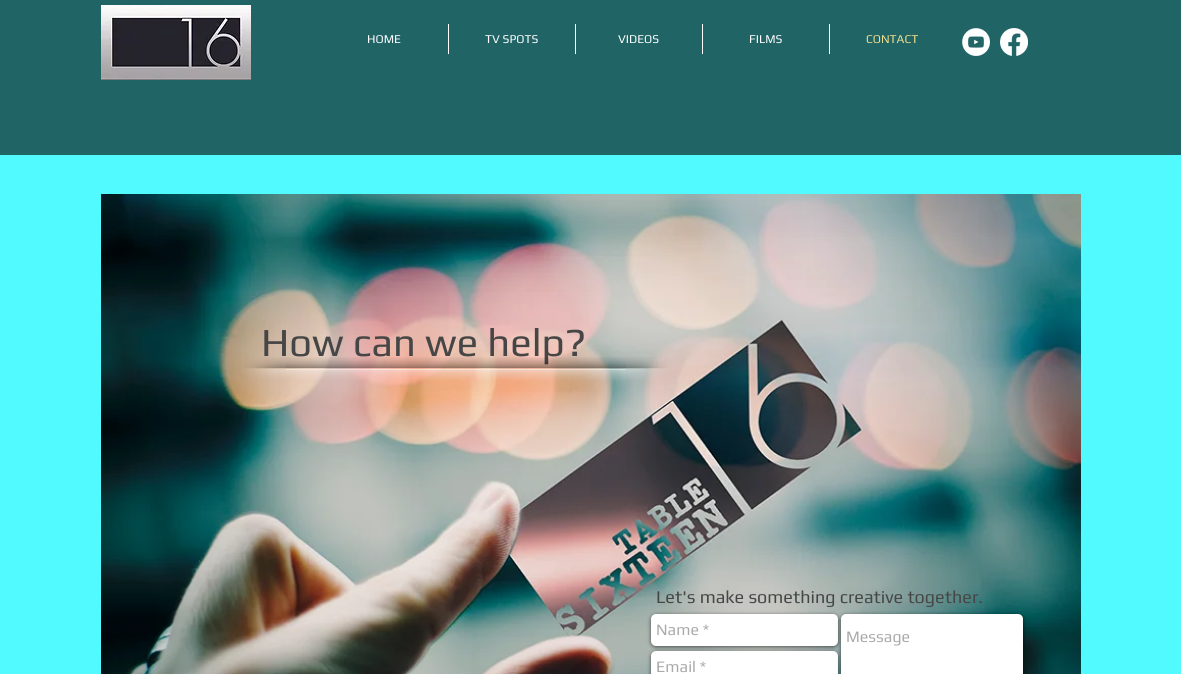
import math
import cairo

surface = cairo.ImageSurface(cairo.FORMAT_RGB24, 1181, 674)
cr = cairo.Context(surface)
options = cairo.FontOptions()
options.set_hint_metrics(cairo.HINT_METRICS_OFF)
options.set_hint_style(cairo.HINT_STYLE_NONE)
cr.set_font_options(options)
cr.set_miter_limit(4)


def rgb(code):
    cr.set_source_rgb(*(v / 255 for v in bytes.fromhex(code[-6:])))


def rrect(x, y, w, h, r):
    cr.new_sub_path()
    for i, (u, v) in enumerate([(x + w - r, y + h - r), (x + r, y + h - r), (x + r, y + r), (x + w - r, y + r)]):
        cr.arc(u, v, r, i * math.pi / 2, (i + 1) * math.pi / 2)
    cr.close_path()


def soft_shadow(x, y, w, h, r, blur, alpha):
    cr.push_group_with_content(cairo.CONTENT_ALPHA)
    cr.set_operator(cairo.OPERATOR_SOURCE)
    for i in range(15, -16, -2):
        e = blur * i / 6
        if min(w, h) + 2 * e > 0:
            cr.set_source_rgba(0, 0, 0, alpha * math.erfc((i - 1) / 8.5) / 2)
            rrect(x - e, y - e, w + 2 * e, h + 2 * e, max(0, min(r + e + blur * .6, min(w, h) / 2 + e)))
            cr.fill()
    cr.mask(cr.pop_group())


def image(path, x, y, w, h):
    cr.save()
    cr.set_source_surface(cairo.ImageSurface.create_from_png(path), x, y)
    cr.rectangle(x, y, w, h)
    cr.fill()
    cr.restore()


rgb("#50fafe")
cr.paint()
rgb("#206466")
cr.rectangle(0, 0, 1181, 155)
cr.fill()
image("img/1.png", 101, 5, 150, 75)
for x, y, w, h, color in [
    (448, 24, 1, 30, "#ffffff"),
    (575, 24, 1, 30, "#ffffff"),
    (702, 24, 1, 30, "#ffffff"),
    (829, 24, 1, 30, "#ffffff"),
]:
    rgb(color)
    cr.rectangle(x, y, w, h)
    cr.fill()
image("img/2.png", 962, 28, 28, 28)
image("img/3.png", 1000, 28, 28, 28)
image("img/4.png", 101, 194, 980, 480)
image("img/7.png", 626, 357, 42, 22)
rgb("#000000")
soft_shadow(651, 615, 187, 32, 5, 2, 0.6)
rgb("#ffffff")
rrect(651, 614, 187, 32, 5)
cr.fill()
rgb("#000000")
soft_shadow(651, 652, 187, 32, 5, 2, 0.6)
rgb("#ffffff")
rrect(651, 651, 187, 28, 5)
cr.fill()
rgb("#000000")
soft_shadow(841, 615, 182, 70, 5, 2, 0.6)
rgb("#ffffff")
rrect(841, 614, 182, 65, 5)
cr.fill()
cr.select_font_face("Play")
cr.set_font_size(12)
for x, y, s in [
    (367, 43, "HOME"),
    (485, 43, "TV SPOTS"),
    (618, 43, "VIDEOS"),
    (749, 43, "FILMS"),
]:
    cr.move_to(x, y)
    cr.show_text(s)
rgb("#efdd8d")
cr.move_to(866, 43)
cr.show_text("CONTACT")
cr.set_font_size(40)
rgb("#464646")
cr.move_to(261, 356)
cr.show_text("How can we help?")
image("img/5.png", 286, 357, 340, 23)
image("img/6.png", 244, 357, 42, 22)
cr.set_font_size(18)
cr.move_to(656, 603)
cr.show_text("Let's make something creative together.")
cr.set_font_size(16)
rgb("#a9a9a9")
for x, y, s in [
    (656, 635, "Name *"),
    (846, 642, "Message"),
    (656, 672, "Email *"),
]:
    cr.move_to(x, y)
    cr.show_text(s)
surface.write_to_png("page.png")
